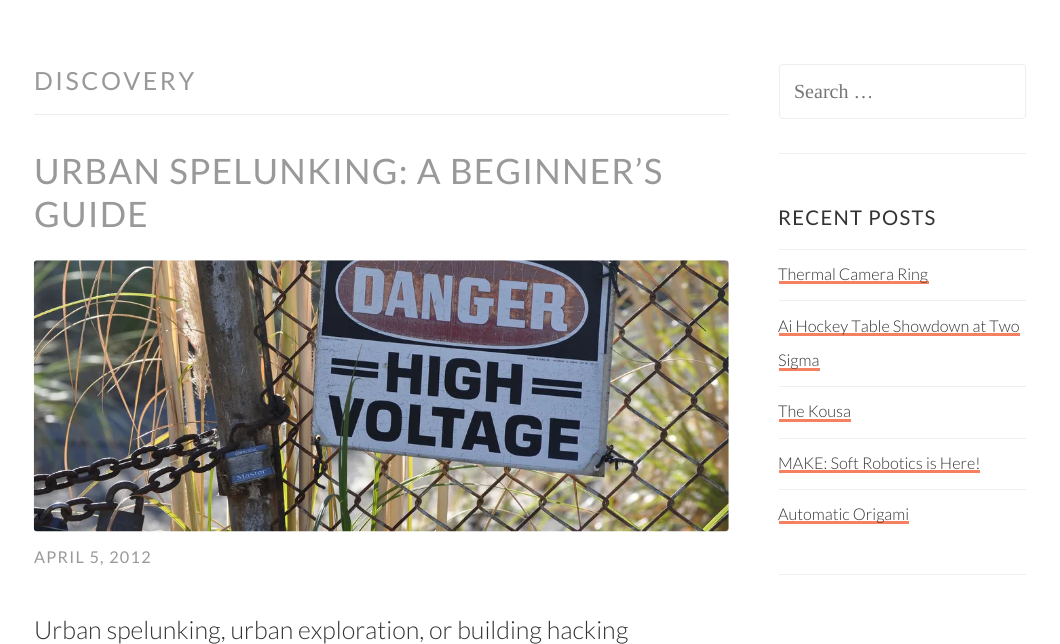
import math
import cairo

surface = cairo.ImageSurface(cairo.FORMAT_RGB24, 1060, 644)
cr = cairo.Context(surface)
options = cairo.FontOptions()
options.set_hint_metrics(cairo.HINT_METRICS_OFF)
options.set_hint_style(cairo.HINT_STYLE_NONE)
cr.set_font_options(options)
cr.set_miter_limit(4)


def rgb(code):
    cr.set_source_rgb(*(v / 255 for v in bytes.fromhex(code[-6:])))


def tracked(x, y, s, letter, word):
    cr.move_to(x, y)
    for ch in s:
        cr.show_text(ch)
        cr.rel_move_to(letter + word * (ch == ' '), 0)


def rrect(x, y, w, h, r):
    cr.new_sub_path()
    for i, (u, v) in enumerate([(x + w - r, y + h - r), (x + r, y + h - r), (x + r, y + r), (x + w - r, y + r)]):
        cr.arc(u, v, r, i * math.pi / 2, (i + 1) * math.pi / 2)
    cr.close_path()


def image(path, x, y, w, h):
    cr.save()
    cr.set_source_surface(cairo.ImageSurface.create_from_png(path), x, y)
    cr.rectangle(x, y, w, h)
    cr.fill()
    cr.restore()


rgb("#ffffff")
cr.paint()
rgb("#eeeeee")
cr.rectangle(34, 114, 695, 1)
cr.fill()
image("img/1.png", 33, 260, 696, 272)
cr.rectangle(779, 153, 247, 1)
cr.fill()
rrect(779.5, 64.5, 246, 54, 3.5)
cr.set_line_width(1)
cr.stroke()
for x, y, w, h, color in [
    (779, 574, 247, 1, "#eeeeee"),
    (779, 249, 247, 1, "#eeeeee"),
    (779, 281, 150, 3, "#f68060"),
    (779, 300, 247, 1, "#eeeeee"),
    (779, 333, 241, 3, "#f68060"),
    (779, 368, 41, 3, "#f68060"),
    (779, 386, 247, 1, "#eeeeee"),
    (779, 419, 72, 3, "#f68060"),
    (779, 438, 247, 1, "#eeeeee"),
    (779, 470, 201, 3, "#f68060"),
    (779, 489, 247, 1, "#eeeeee"),
    (779, 521, 130, 3, "#f68060"),
]:
    rgb(color)
    cr.rectangle(x, y, w, h)
    cr.fill()
cr.select_font_face("Lato")
cr.set_font_size(25)
rgb("#999999")
tracked(34, 90, "DISCOVERY", 2.5, 0)
cr.set_font_size(35)
tracked(34, 184, "URBAN SPELUNKING: A BEGINNER’S", 1.25, 0)
tracked(34, 227, "GUIDE", 1.25, 0)
cr.set_font_size(16.25)
tracked(34, 563, "APRIL 5, 2012", 1.25, 0)
cr.select_font_face("Lato Light")
cr.set_font_size(25)
rgb("#333333")
cr.move_to(34, 639)
cr.show_text("Urban spelunking, urban exploration, or building hacking")
cr.select_font_face("Liberation Serif")
cr.set_font_size(20)
rgb("#757575")
cr.move_to(794, 98)
cr.show_text("Search …")
cr.select_font_face("Lato")
cr.set_font_size(20.25)
rgb("#333333")
tracked(778, 225, "RECENT POSTS", 1.25, 0)
cr.select_font_face("Lato Light")
cr.set_font_size(16.25)
for x, y, s in [
    (778, 280, "Thermal Camera Ring"),
    (778, 332, "Ai Hockey Table Showdown at Two"),
    (778, 366, "Sigma"),
    (778, 417, "The Kousa"),
    (778, 469, "MAKE: Soft Robotics is Here!"),
    (778, 520, "Automatic Origami"),
]:
    cr.move_to(x, y)
    cr.show_text(s)
surface.write_to_png("page.png")
